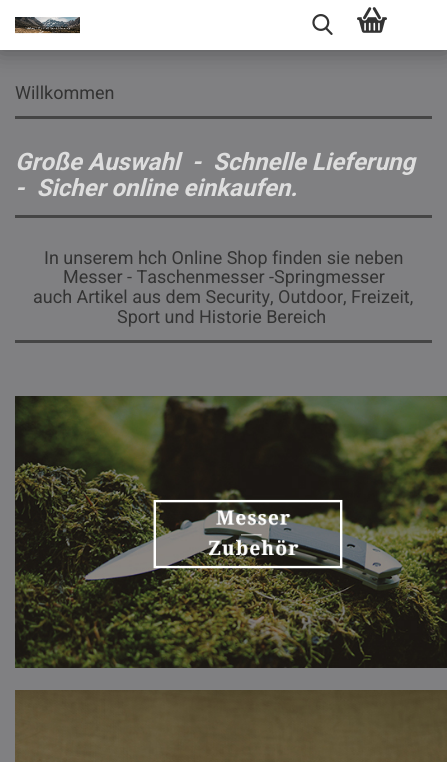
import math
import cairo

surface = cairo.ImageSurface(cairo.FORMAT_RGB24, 447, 762)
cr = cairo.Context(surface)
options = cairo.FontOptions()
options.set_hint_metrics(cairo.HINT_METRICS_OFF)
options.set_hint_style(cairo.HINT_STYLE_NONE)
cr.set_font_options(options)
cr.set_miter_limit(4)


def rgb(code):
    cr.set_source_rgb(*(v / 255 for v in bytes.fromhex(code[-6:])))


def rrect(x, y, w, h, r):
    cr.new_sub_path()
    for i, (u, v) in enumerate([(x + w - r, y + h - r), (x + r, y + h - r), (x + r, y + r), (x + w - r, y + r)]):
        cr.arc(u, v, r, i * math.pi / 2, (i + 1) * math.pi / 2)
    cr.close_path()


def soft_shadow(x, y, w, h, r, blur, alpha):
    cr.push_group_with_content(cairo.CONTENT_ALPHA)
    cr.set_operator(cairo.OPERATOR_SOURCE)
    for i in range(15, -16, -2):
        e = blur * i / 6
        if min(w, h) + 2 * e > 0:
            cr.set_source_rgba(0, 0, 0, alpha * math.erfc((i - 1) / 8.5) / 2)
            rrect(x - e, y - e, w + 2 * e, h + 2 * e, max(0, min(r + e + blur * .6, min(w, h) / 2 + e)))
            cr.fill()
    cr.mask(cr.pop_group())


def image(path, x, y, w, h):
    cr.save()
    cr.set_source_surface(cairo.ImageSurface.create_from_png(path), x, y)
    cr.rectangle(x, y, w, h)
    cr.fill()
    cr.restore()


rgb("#808082")
cr.paint()
rgb("#000000")
soft_shadow(0, 0, 447, 50, 0, 12.5, 0.35)
rgb("#ffffff")
cr.rectangle(0, 0, 447, 50)
cr.fill()
image("img/1.png", 15, 17, 65, 17)
image("img/2.png", 312, 14, 21, 21)
image("img/3.png", 357, 7, 30, 26)
for x, y, w, h, color in [
    (15, 116, 417, 3, "#454545"),
    (15, 215, 417, 3, "#454545"),
    (15, 340, 417, 3, "#454545"),
]:
    rgb(color)
    cr.rectangle(x, y, w, h)
    cr.fill()
image("img/4.png", 15, 396, 432, 272)
image("img/5.png", 15, 690, 432, 72)
cr.select_font_face("Roboto")
cr.set_font_size(18)
rgb("#333333")
cr.move_to(15, 99)
cr.show_text("Willkommen")
cr.select_font_face("Roboto", cairo.FONT_SLANT_ITALIC, cairo.FONT_WEIGHT_BOLD)
cr.set_font_size(24)
rgb("#dddddd")
for x, y, s in [
    (15, 170, "Große Auswahl  -"),
    (213, 170, "Schnelle Lieferung"),
    (15, 196, "-  Sicher online einkaufen."),
]:
    cr.move_to(x, y)
    cr.show_text(s)
cr.select_font_face("Roboto")
cr.set_font_size(18)
rgb("#333333")
for x, y, s in [
    (44, 264, "In unserem hch Online Shop finden sie neben"),
    (63, 283, "Messer - Taschenmesser -Springmesser"),
    (33, 303, "auch Artikel aus dem Security, Outdoor, Freizeit,"),
    (117, 323, "Sport und Historie Bereich"),
]:
    cr.move_to(x, y)
    cr.show_text(s)
surface.write_to_png("page.png")
